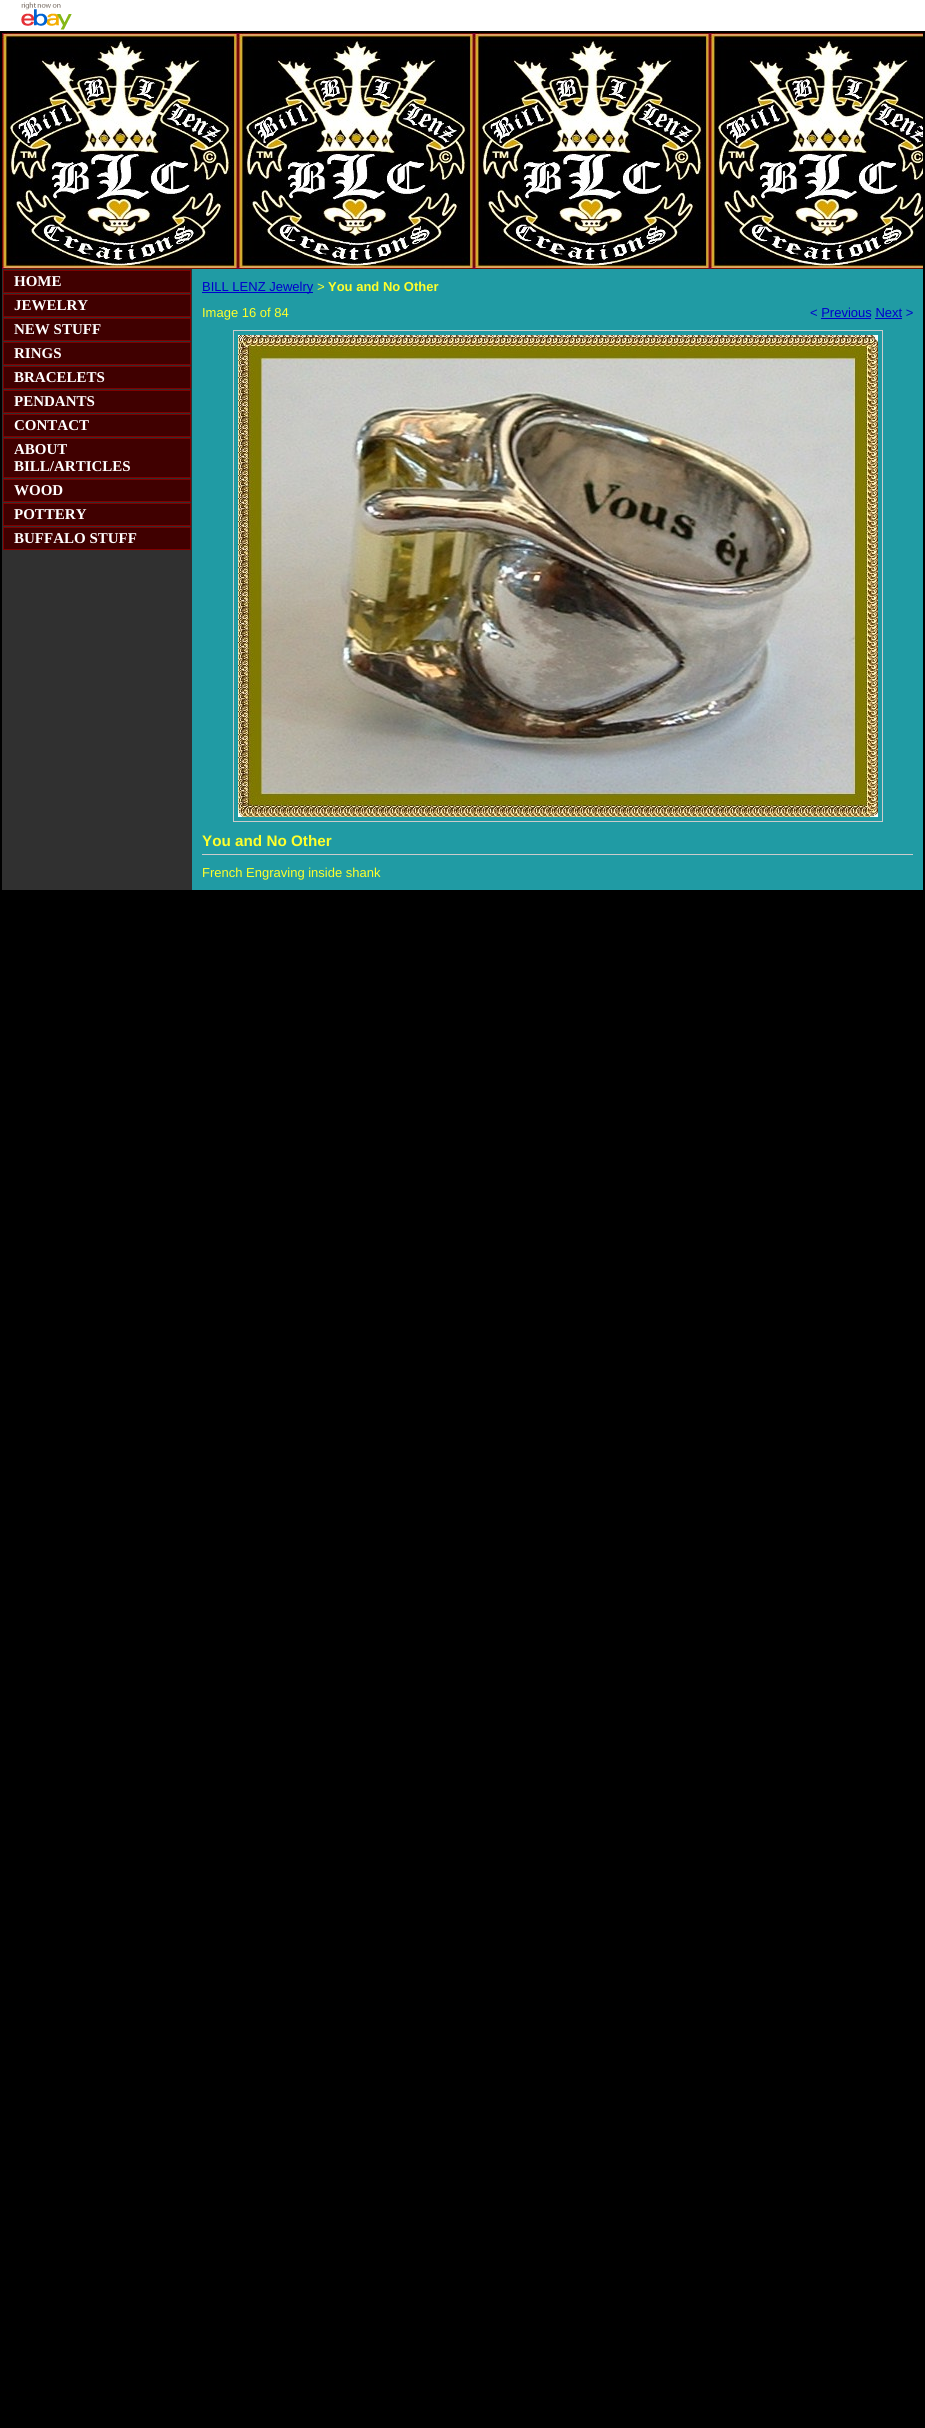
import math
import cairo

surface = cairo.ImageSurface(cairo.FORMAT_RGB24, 925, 2428)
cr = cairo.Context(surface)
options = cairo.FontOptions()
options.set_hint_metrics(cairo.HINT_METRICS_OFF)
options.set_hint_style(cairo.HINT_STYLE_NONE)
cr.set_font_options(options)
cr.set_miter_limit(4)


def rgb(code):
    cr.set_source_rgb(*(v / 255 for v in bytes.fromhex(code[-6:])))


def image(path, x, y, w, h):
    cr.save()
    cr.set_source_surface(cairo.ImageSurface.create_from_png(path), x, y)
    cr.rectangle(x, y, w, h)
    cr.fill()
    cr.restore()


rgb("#ffffff")
cr.paint()
image("img/1.png", 21, 2, 51, 28)
rgb("#000000")
cr.rectangle(0, 31, 925, 2397)
cr.fill()
image("img/2.png", 2, 33, 921, 236)
for x, y, w, h, color in [
    (2, 269, 190, 621, "#303030"),
    (3, 270, 188, 23, "#800000"),
    (4, 271, 186, 21, "#400000"),
    (3, 294, 188, 23, "#800000"),
    (4, 295, 186, 21, "#400000"),
    (3, 318, 188, 23, "#800000"),
    (4, 319, 186, 21, "#400000"),
    (3, 342, 188, 23, "#800000"),
    (4, 343, 186, 21, "#400000"),
    (3, 366, 188, 23, "#800000"),
    (4, 367, 186, 21, "#400000"),
    (3, 390, 188, 23, "#800000"),
    (4, 391, 186, 21, "#400000"),
    (3, 414, 188, 23, "#800000"),
    (4, 415, 186, 21, "#400000"),
    (3, 438, 188, 40, "#800000"),
    (4, 439, 186, 38, "#400000"),
    (3, 479, 188, 23, "#800000"),
    (4, 480, 186, 21, "#400000"),
    (3, 503, 188, 23, "#800000"),
    (4, 504, 186, 21, "#400000"),
    (3, 527, 188, 23, "#800000"),
    (4, 528, 186, 21, "#400000"),
    (192, 269, 731, 621, "#209ba4"),
    (202, 292, 111, 1, "#0000cc"),
    (821, 318, 50, 1, "#0000cc"),
    (875, 318, 27, 1, "#0000cc"),
]:
    rgb(color)
    cr.rectangle(x, y, w, h)
    cr.fill()
cr.rectangle(233.5, 330.5, 649, 491)
rgb("#cccccc")
cr.set_line_width(1)
cr.stroke()
image("img/3.png", 238, 335, 640, 482)
cr.rectangle(202, 854, 711, 1)
cr.fill()
cr.select_font_face("Liberation Serif", cairo.FONT_SLANT_NORMAL, cairo.FONT_WEIGHT_BOLD)
cr.set_font_size(15)
rgb("#ffffff")
for x, y, s in [
    (14, 286, "HOME"),
    (14, 310, "JEWELRY"),
    (14, 334, "NEW STUFF"),
    (14, 358, "RINGS"),
    (14, 382, "BRACELETS"),
    (14, 406, "PENDANTS"),
    (14, 430, "CONTACT"),
    (14, 454, "ABOUT"),
    (14, 471, "BILL/ARTICLES"),
    (14, 495, "WOOD"),
    (14, 519, "POTTERY"),
    (14, 543, "BUFFALO STUFF"),
]:
    cr.move_to(x, y)
    cr.show_text(s)
cr.select_font_face("Liberation Sans")
cr.set_font_size(13)
rgb("#0000cc")
cr.move_to(202, 291)
cr.show_text("BILL LENZ Jewelry")
cr.select_font_face("Liberation Mono")
rgb("#ffff2b")
cr.move_to(317, 291)
cr.show_text(">")
cr.select_font_face("Liberation Sans", cairo.FONT_SLANT_NORMAL, cairo.FONT_WEIGHT_BOLD)
cr.move_to(328, 291)
cr.show_text("You and No Other")
cr.select_font_face("Liberation Sans")
cr.move_to(202, 317)
cr.show_text("Image 16 of 84")
rgb("#0000cc")
cr.move_to(810, 317)
cr.show_text("< Previous Next >")
cr.select_font_face("Liberation Sans", cairo.FONT_SLANT_NORMAL, cairo.FONT_WEIGHT_BOLD)
cr.set_font_size(15.25)
rgb("#ffff2b")
cr.move_to(202, 846)
cr.show_text("You and No Other")
cr.select_font_face("Liberation Sans")
cr.set_font_size(13)
cr.move_to(202, 877)
cr.show_text("French Engraving inside shank")
surface.write_to_png("page.png")
